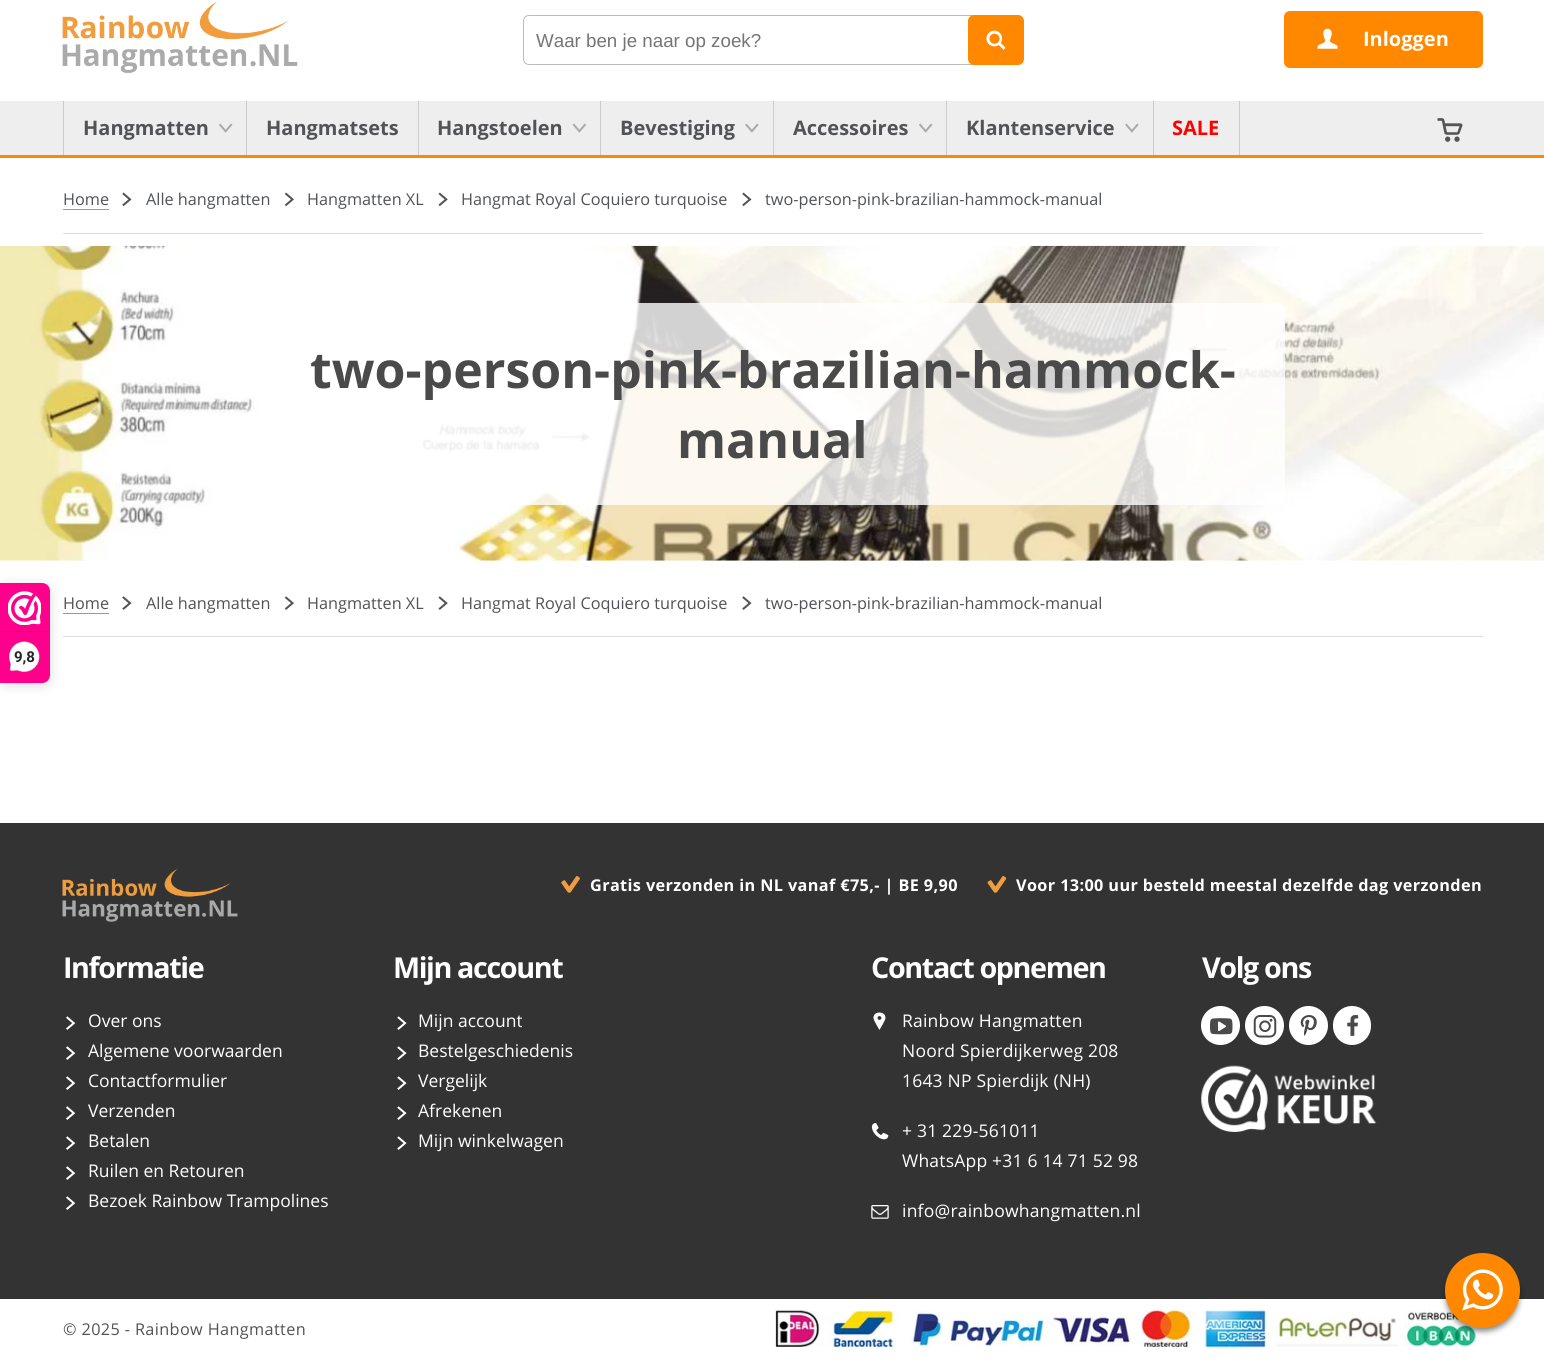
import math
import cairo

surface = cairo.ImageSurface(cairo.FORMAT_RGB24, 1544, 1364)
cr = cairo.Context(surface)
options = cairo.FontOptions()
options.set_hint_metrics(cairo.HINT_METRICS_OFF)
options.set_hint_style(cairo.HINT_STYLE_NONE)
cr.set_font_options(options)
cr.set_miter_limit(4)


def rgb(code):
    cr.set_source_rgb(*(v / 255 for v in bytes.fromhex(code[-6:])))


def tracked(x, y, s, letter, word):
    cr.move_to(x, y)
    for ch in s:
        cr.show_text(ch)
        cr.rel_move_to(letter + word * (ch == ' '), 0)


def rrect(x, y, w, h, r):
    cr.new_sub_path()
    for i, (u, v) in enumerate([(x + w - r, y + h - r), (x + r, y + h - r), (x + r, y + r), (x + w - r, y + r)]):
        cr.arc(u, v, r, i * math.pi / 2, (i + 1) * math.pi / 2)
    cr.close_path()


def soft_shadow(x, y, w, h, r, blur, alpha):
    cr.push_group_with_content(cairo.CONTENT_ALPHA)
    cr.set_operator(cairo.OPERATOR_SOURCE)
    for i in range(15, -16, -2):
        e = blur * i / 6
        if min(w, h) + 2 * e > 0:
            cr.set_source_rgba(0, 0, 0, alpha * math.erfc((i - 1) / 8.5) / 2)
            rrect(x - e, y - e, w + 2 * e, h + 2 * e, max(0, min(r + e + blur * .6, min(w, h) / 2 + e)))
            cr.fill()
    cr.mask(cr.pop_group())


def image(path, x, y, w, h):
    cr.save()
    cr.set_source_surface(cairo.ImageSurface.create_from_png(path), x, y)
    cr.rectangle(x, y, w, h)
    cr.fill()
    cr.restore()


rgb("#ffffff")
cr.paint()
rgb("#dddddd")
cr.rectangle(63, 636, 1420, 1)
cr.fill()
rgb("#999999")
cr.rectangle(63, 613, 46, 1)
cr.fill()
rgb("#000000")
soft_shadow(0, 585, 50, 100, 8, 6, 0.15)
rgb("#fe008c")
cr.new_path()
cr.move_to(0, 583)
cr.line_to(42, 583)
cr.curve_to(46.5, 583, 50, 586.5, 50, 591)
cr.line_to(50, 675)
cr.curve_to(50, 679.5, 46.5, 683, 42, 683)
cr.line_to(0, 683)
cr.close_path()
cr.fill()
image("img/1.png", 8, 591, 33, 34)
rgb("#d80077")
cr.rectangle(0, 631, 49, 1)
cr.fill()
image("img/2.png", 9, 641, 31, 32)
rrect(523.5, 15.5, 499, 49, 5.5)
rgb("#bbbbbb")
cr.set_line_width(1)
cr.stroke()
rgb("#ff8800")
rrect(968, 15, 56, 50, 6)
cr.fill()
image("img/3.png", 986, 30, 20, 20)
image("img/4.png", 62, 2, 236, 72)
rrect(1285.5, 12.5, 196, 54, 4.5)
cr.fill_preserve()
cr.set_line_width(3)
cr.stroke()
image("img/5.png", 1317, 28, 21, 21)
for x, y, w, h, color in [
    (0, 101, 1544, 54, "#eeeeee"),
    (246, 101, 1, 54, "#cccccc"),
    (63, 101, 1, 54, "#cccccc"),
]:
    rgb(color)
    cr.rectangle(x, y, w, h)
    cr.fill()
image("img/6.png", 219, 123, 14, 10)
cr.rectangle(418, 101, 1, 54)
cr.fill()
cr.rectangle(600, 101, 1, 54)
cr.fill()
image("img/7.png", 572, 123, 14, 10)
cr.rectangle(773, 101, 1, 54)
cr.fill()
image("img/8.png", 745, 123, 14, 10)
cr.rectangle(946, 101, 1, 54)
cr.fill()
image("img/6.png", 919, 123, 14, 10)
cr.rectangle(1153, 101, 1, 54)
cr.fill()
image("img/8.png", 1125, 123, 14, 10)
cr.rectangle(1239, 101, 1, 54)
cr.fill()
image("img/9.png", 1437, 118, 26, 24)
for x, y, w, h, color in [
    (0, 155, 1544, 3, "#ff8802"),
    (63, 233, 1420, 1, "#dddddd"),
    (63, 209, 46, 1, "#999999"),
]:
    rgb(color)
    cr.rectangle(x, y, w, h)
    cr.fill()
image("img/10.png", 122, 192, 10, 15)
image("img/11.png", 284, 192, 10, 15)
image("img/12.png", 438, 192, 10, 15)
image("img/10.png", 742, 192, 10, 15)
image("img/13.png", 0, 245, 1544, 316)
cr.set_source_rgba(1, 1, 1, 0.8)
rrect(260, 303, 1025, 202, 8)
cr.fill()
image("img/14.png", 122, 596, 10, 14)
image("img/15.png", 284, 596, 10, 14)
image("img/16.png", 438, 596, 10, 14)
image("img/14.png", 742, 596, 10, 14)
rgb("#333333")
cr.rectangle(0, 823, 1544, 476)
cr.fill()
image("img/17.png", 62, 868, 176, 54)
image("img/18.png", 561, 876, 19, 17)
image("img/19.png", 987, 876, 20, 17)
image("img/20.png", 66, 1016, 10, 14)
image("img/20.png", 66, 1046, 10, 14)
image("img/20.png", 66, 1076, 10, 14)
image("img/20.png", 66, 1106, 10, 14)
image("img/20.png", 66, 1136, 10, 14)
image("img/20.png", 66, 1166, 10, 14)
image("img/20.png", 66, 1196, 10, 14)
image("img/21.png", 397, 1016, 10, 14)
image("img/21.png", 397, 1046, 10, 14)
image("img/21.png", 397, 1076, 10, 14)
image("img/21.png", 397, 1106, 10, 14)
image("img/21.png", 397, 1136, 10, 14)
image("img/22.png", 873, 1012, 13, 18)
image("img/23.png", 871, 1123, 18, 17)
image("img/24.png", 871, 1205, 18, 14)
rgb("#ffffff")
cr.arc(1220.5, 1025.5, 19.5, 0, 2 * math.pi)
cr.fill()
image("img/25.png", 1210, 1018, 23, 17)
cr.arc(1264.5, 1025.5, 19.5, 0, 2 * math.pi)
cr.fill()
image("img/26.png", 1253, 1015, 24, 23)
cr.arc(1308.5, 1025.5, 19.5, 0, 2 * math.pi)
cr.fill()
image("img/27.png", 1300, 1015, 17, 21)
rrect(1333, 1006, 38, 39, 19)
cr.fill()
image("img/28.png", 1347, 1015, 12, 21)
image("img/29.png", 1201, 1065, 176, 67)
image("img/30.png", 775, 1310, 702, 37)
rgb("#000000")
soft_shadow(1446, 1259, 73, 72, 36, 3, 0.5)
rgb("#ff8800")
cr.arc(1482.5, 1290.5, 36, 0, 2 * math.pi)
cr.fill_preserve()
cr.stroke()
image("img/31.png", 1462, 1269, 41, 42)
cr.select_font_face("Roboto", cairo.FONT_SLANT_NORMAL, cairo.FONT_WEIGHT_BOLD)
cr.set_font_size(15)
rgb("#272626")
cr.move_to(14, 662)
cr.show_text("9,8")
cr.select_font_face("Liberation Sans")
cr.set_font_size(18.75)
rgb("#757575")
cr.move_to(536, 47)
cr.show_text("Waar ben je naar op zoek?")
cr.select_font_face("Open Sans", cairo.FONT_SLANT_NORMAL, cairo.FONT_WEIGHT_BOLD)
cr.set_font_size(20)
rgb("#ffffff")
cr.move_to(1363, 46)
cr.show_text("Inloggen")
rgb("#515356")
for x, y, s in [
    (83, 135, "Hangmatten"),
    (266, 135, "Hangmatsets"),
    (437, 135, "Hangstoelen"),
    (620, 135, "Bevestiging"),
    (793, 135, "Accessoires"),
    (966, 135, "Klantenservice"),
]:
    cr.move_to(x, y)
    cr.show_text(s)
rgb("#ff0000")
cr.move_to(1172, 135)
cr.show_text("SALE")
cr.select_font_face("Open Sans")
cr.set_font_size(16.25)
rgb("#515356")
for x, y, s in [
    (63, 205, "Home"),
    (146, 205, "Alle hangmatten"),
    (307, 205, "Hangmatten XL"),
    (461, 205, "Hangmat Royal Coquiero turquoise"),
    (765, 205, "two-person-pink-brazilian-hammock-manual"),
]:
    cr.move_to(x, y)
    cr.show_text(s)
cr.select_font_face("Open Sans", cairo.FONT_SLANT_NORMAL, cairo.FONT_WEIGHT_BOLD)
cr.set_font_size(50)
rgb("#4a4a4a")
cr.move_to(310, 388)
cr.show_text("two-person-pink-brazilian-hammock-")
cr.move_to(677, 458)
cr.show_text("manual")
cr.select_font_face("Open Sans")
cr.set_font_size(16.25)
rgb("#515356")
for x, y, s in [
    (63, 609, "Home"),
    (146, 609, "Alle hangmatten"),
    (307, 609, "Hangmatten XL"),
    (461, 609, "Hangmat Royal Coquiero turquoise"),
    (765, 609, "two-person-pink-brazilian-hammock-manual"),
]:
    cr.move_to(x, y)
    cr.show_text(s)
cr.select_font_face("Open Sans", cairo.FONT_SLANT_NORMAL, cairo.FONT_WEIGHT_BOLD)
rgb("#ffffff")
tracked(590, 891, "Gratis verzonden in NL vanaf €75,- | BE 9,90", 0.37, 0)
tracked(1016, 891, "Voor 13:00 uur besteld meestal dezelfde dag verzonden", 0.37, 0)
cr.set_font_size(28.75)
tracked(63, 978, "Informatie", -1.4, 0)
cr.select_font_face("Open Sans")
cr.set_font_size(17.5)
for x, y, s in [
    (88, 1027, "Over ons"),
    (88, 1057, "Algemene voorwaarden"),
    (88, 1087, "Contactformulier"),
    (88, 1117, "Verzenden"),
    (88, 1147, "Betalen"),
    (88, 1177, "Ruilen en Retouren"),
    (88, 1207, "Bezoek Rainbow Trampolines"),
]:
    cr.move_to(x, y)
    cr.show_text(s)
cr.select_font_face("Open Sans", cairo.FONT_SLANT_NORMAL, cairo.FONT_WEIGHT_BOLD)
cr.set_font_size(28.75)
tracked(393, 978, "Mijn account", -1.4, 0)
cr.select_font_face("Open Sans")
cr.set_font_size(17.5)
for x, y, s in [
    (418, 1027, "Mijn account"),
    (418, 1057, "Bestelgeschiedenis"),
    (418, 1087, "Vergelijk"),
    (418, 1117, "Afrekenen"),
    (418, 1147, "Mijn winkelwagen"),
]:
    cr.move_to(x, y)
    cr.show_text(s)
cr.select_font_face("Open Sans", cairo.FONT_SLANT_NORMAL, cairo.FONT_WEIGHT_BOLD)
cr.set_font_size(28.75)
tracked(871, 978, "Contact opnemen", -1.4, 0)
cr.select_font_face("Open Sans")
cr.set_font_size(17.5)
for x, y, s in [
    (902, 1027, "Rainbow Hangmatten"),
    (902, 1057, "Noord Spierdijkerweg 208"),
    (902, 1087, "1643 NP Spierdijk (NH)"),
    (902, 1137, "+ 31 229-561011"),
    (902, 1167, "WhatsApp +31 6 14 71 52 98"),
    (902, 1217, "info@rainbowhangmatten.nl"),
]:
    tracked(x, y, s, 0.2, 0)
cr.select_font_face("Open Sans", cairo.FONT_SLANT_NORMAL, cairo.FONT_WEIGHT_BOLD)
cr.set_font_size(28.75)
tracked(1202, 978, "Volg ons", -1.4, 0)
cr.select_font_face("Open Sans")
cr.set_font_size(16.25)
rgb("#515356")
tracked(63, 1335, "© 2025 - Rainbow Hangmatten", 0.37, 0)
surface.write_to_png("page.png")
